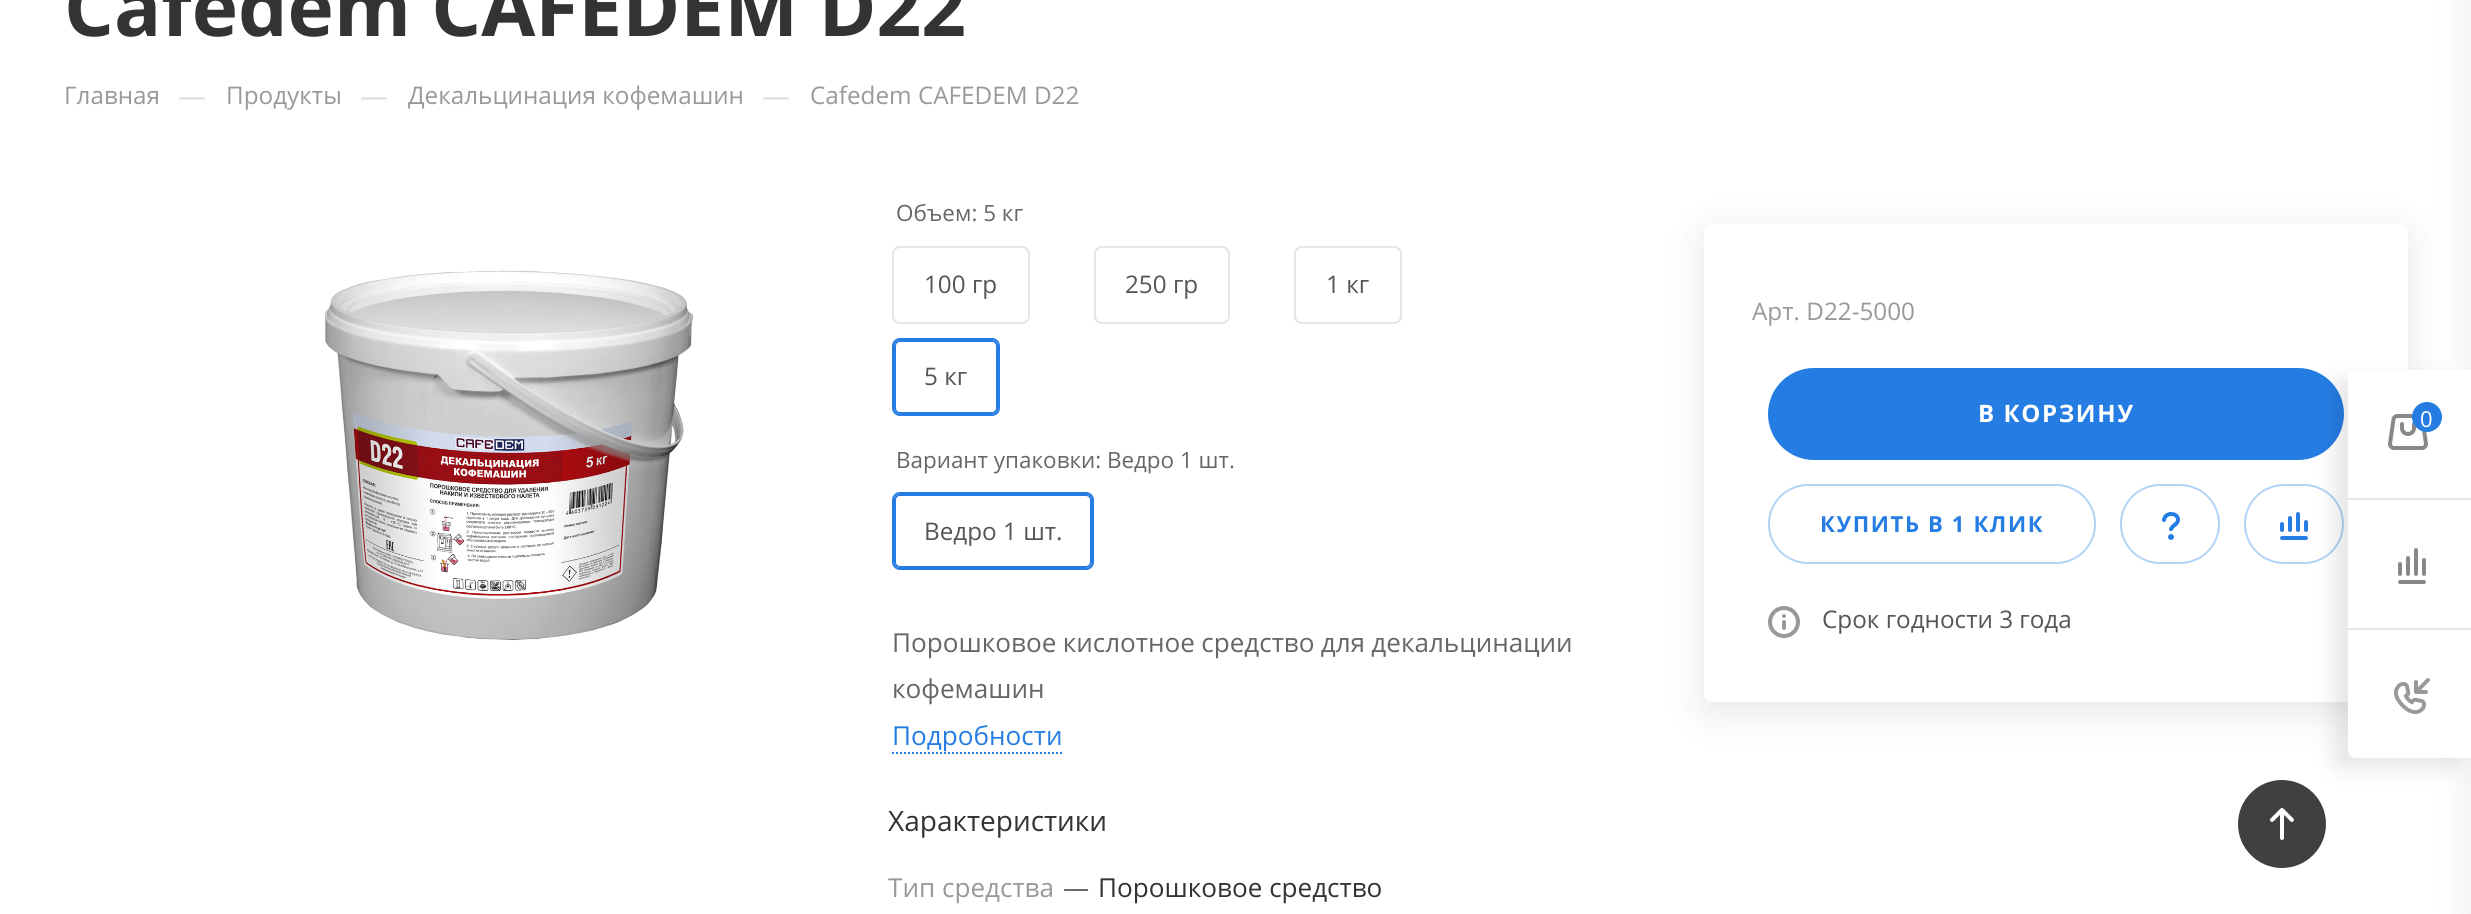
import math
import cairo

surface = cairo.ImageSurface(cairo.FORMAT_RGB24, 2471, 914)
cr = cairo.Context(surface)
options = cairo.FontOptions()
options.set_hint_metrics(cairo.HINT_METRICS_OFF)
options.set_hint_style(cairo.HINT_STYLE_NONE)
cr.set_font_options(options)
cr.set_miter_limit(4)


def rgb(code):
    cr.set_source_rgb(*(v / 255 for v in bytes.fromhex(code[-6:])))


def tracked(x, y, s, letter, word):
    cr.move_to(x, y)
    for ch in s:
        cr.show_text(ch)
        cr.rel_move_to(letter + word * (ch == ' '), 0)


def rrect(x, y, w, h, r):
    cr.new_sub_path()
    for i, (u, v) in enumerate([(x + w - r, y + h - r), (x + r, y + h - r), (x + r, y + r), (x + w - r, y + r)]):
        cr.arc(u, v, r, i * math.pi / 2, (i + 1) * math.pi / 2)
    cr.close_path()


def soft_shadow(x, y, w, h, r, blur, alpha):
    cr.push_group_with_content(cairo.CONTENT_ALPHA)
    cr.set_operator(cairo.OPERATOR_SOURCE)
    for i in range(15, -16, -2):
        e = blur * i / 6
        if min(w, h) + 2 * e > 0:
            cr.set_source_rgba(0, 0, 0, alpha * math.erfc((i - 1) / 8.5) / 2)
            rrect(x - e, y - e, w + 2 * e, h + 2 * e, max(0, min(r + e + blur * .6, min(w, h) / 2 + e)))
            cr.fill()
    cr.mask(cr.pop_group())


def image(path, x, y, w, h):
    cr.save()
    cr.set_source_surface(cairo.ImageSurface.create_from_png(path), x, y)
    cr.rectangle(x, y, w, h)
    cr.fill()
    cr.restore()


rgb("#ffffff")
cr.paint()
image("img/1.png", 325, 270, 369, 371)
rrect(893, 247, 136, 76, 7)
rgb("#e5e5e5")
cr.stroke()
rrect(1095, 247, 134, 76, 7)
cr.stroke()
rrect(1295, 247, 106, 76, 7)
cr.stroke()
rrect(895, 341, 102, 72, 5)
rgb("#257de3")
cr.stroke()
rrect(893, 339, 106, 76, 7)
cr.stroke()
rrect(895, 495, 196, 72, 5)
cr.stroke()
rrect(893, 493, 200, 76, 7)
cr.stroke()
cr.new_path()
cr.move_to(892, 753)
cr.line_to(1062, 753)
cr.set_dash([2, 2])
cr.stroke()
rgb("#000000")
soft_shadow(1704, 234, 704, 478, 8, 20, 0.1)
rgb("#ffffff")
rrect(1704, 224, 704, 478, 8)
cr.fill()
rgb("#257de3")
rrect(1769, 369, 574, 90, 45)
cr.fill_preserve()
cr.set_dash([])
cr.stroke()
rrect(1769, 485, 326, 78, 39)
rgb("#b3d2f5")
cr.stroke()
rrect(2121, 485, 98, 78, 39)
cr.stroke()
image("img/2.png", 2162, 512, 18, 28)
rrect(2245, 485, 98, 78, 39)
cr.stroke()
image("img/3.png", 2280, 512, 28, 28)
image("img/4.png", 1768, 606, 32, 32)
rgb("#000000")
soft_shadow(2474, 0, 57, 914, 0, 20, 0.1)
rgb("#404040")
cr.arc(2282, 824, 44, 0, 2 * math.pi)
cr.fill()
rgb("#000000")
soft_shadow(2334, 380, 126, 388, 8, 11, 0.1)
rgb("#ffffff")
cr.new_path()
cr.move_to(2356, 370)
cr.line_to(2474, 370)
cr.line_to(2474, 758)
cr.line_to(2356, 758)
cr.curve_to(2351.5, 758, 2348, 754.5, 2348, 750)
cr.line_to(2348, 378)
cr.curve_to(2348, 373.5, 2351.5, 370, 2356, 370)
cr.close_path()
cr.fill()
image("img/5.png", 2388, 414, 40, 36)
rgb("#257de3")
cr.arc(2427, 417, 15, 0, 2 * math.pi)
cr.fill()
rgb("#e5e5e5")
cr.rectangle(2348, 498, 123, 2)
cr.fill()
image("img/6.png", 2398, 548, 28, 36)
cr.rectangle(2348, 628, 123, 2)
cr.fill()
image("img/7.png", 2394, 678, 36, 36)
image("img/8.png", 2270, 808, 24, 32)
cr.select_font_face("Open Sans", cairo.FONT_SLANT_NORMAL, cairo.FONT_WEIGHT_BOLD)
cr.set_font_size(78.4)
rgb("#333333")
cr.move_to(64, 36)
cr.show_text("Cafedem CAFEDEM D22")
cr.select_font_face("Open Sans")
cr.set_font_size(24.25)
rgb("#999999")
cr.move_to(64, 104)
cr.show_text("Главная")
cr.set_font_size(28)
rgb("#dddddd")
cr.move_to(178, 106)
cr.show_text("—")
cr.set_font_size(24.25)
rgb("#999999")
cr.move_to(226, 104)
cr.show_text("Продукты")
cr.set_font_size(28)
rgb("#dddddd")
cr.move_to(360, 106)
cr.show_text("—")
cr.set_font_size(24.25)
rgb("#999999")
cr.move_to(408, 104)
cr.show_text("Декальцинация кофемашин")
cr.set_font_size(28)
rgb("#dddddd")
cr.move_to(762, 106)
cr.show_text("—")
cr.set_font_size(24.25)
rgb("#999999")
cr.move_to(810, 104)
cr.show_text("Cafedem CAFEDEM D22")
cr.set_font_size(22.4)
rgb("#666666")
cr.move_to(896, 221)
cr.show_text("Объем: 5 кг")
cr.set_font_size(24.25)
rgb("#555555")
for x, y, s in [
    (924, 293, "100 гр"),
    (1125, 293, "250 гр"),
    (1326, 293, "1 кг"),
    (924, 385, "5 кг"),
]:
    cr.move_to(x, y)
    cr.show_text(s)
cr.set_font_size(22.4)
rgb("#666666")
cr.move_to(896, 468)
cr.show_text("Вариант упаковки: Ведро 1 шт.")
cr.set_font_size(24.25)
rgb("#555555")
cr.move_to(924, 540)
cr.show_text("Ведро 1 шт.")
cr.set_font_size(26.1)
rgb("#666666")
tracked(892, 652, "Порошковое кислотное средство для декальцинации", 0, -0.5)
cr.move_to(892, 698)
cr.show_text("кофемашин")
rgb("#257de3")
cr.move_to(892, 745)
cr.show_text("Подробности")
cr.set_font_size(28)
rgb("#333333")
cr.move_to(888, 831)
cr.show_text("Характеристики")
cr.set_font_size(26.1)
rgb("#999999")
cr.move_to(888, 897)
cr.show_text("Тип средства")
rgb("#666666")
cr.move_to(1063, 897)
cr.show_text("—")
rgb("#333333")
cr.move_to(1098, 897)
cr.show_text("Порошковое средство")
cr.set_font_size(24.25)
rgb("#999999")
cr.move_to(1752, 320)
cr.show_text("Арт. D22-5000")
cr.select_font_face("Open Sans", cairo.FONT_SLANT_NORMAL, cairo.FONT_WEIGHT_BOLD)
cr.set_font_size(24)
rgb("#ffffff")
tracked(1978, 422, "В КОРЗИНУ", 1.6, 0)
cr.set_font_size(22.1)
rgb("#257de3")
tracked(1820, 532, "КУПИТЬ В 1 КЛИК", 1.6, 0)
cr.select_font_face("Open Sans")
cr.set_font_size(24.25)
rgb("#555555")
cr.move_to(1822, 628)
cr.show_text("Срок годности 3 года")
cr.set_font_size(22)
rgb("#ffffff")
cr.move_to(2420, 427)
cr.show_text("0")
surface.write_to_png("page.png")
